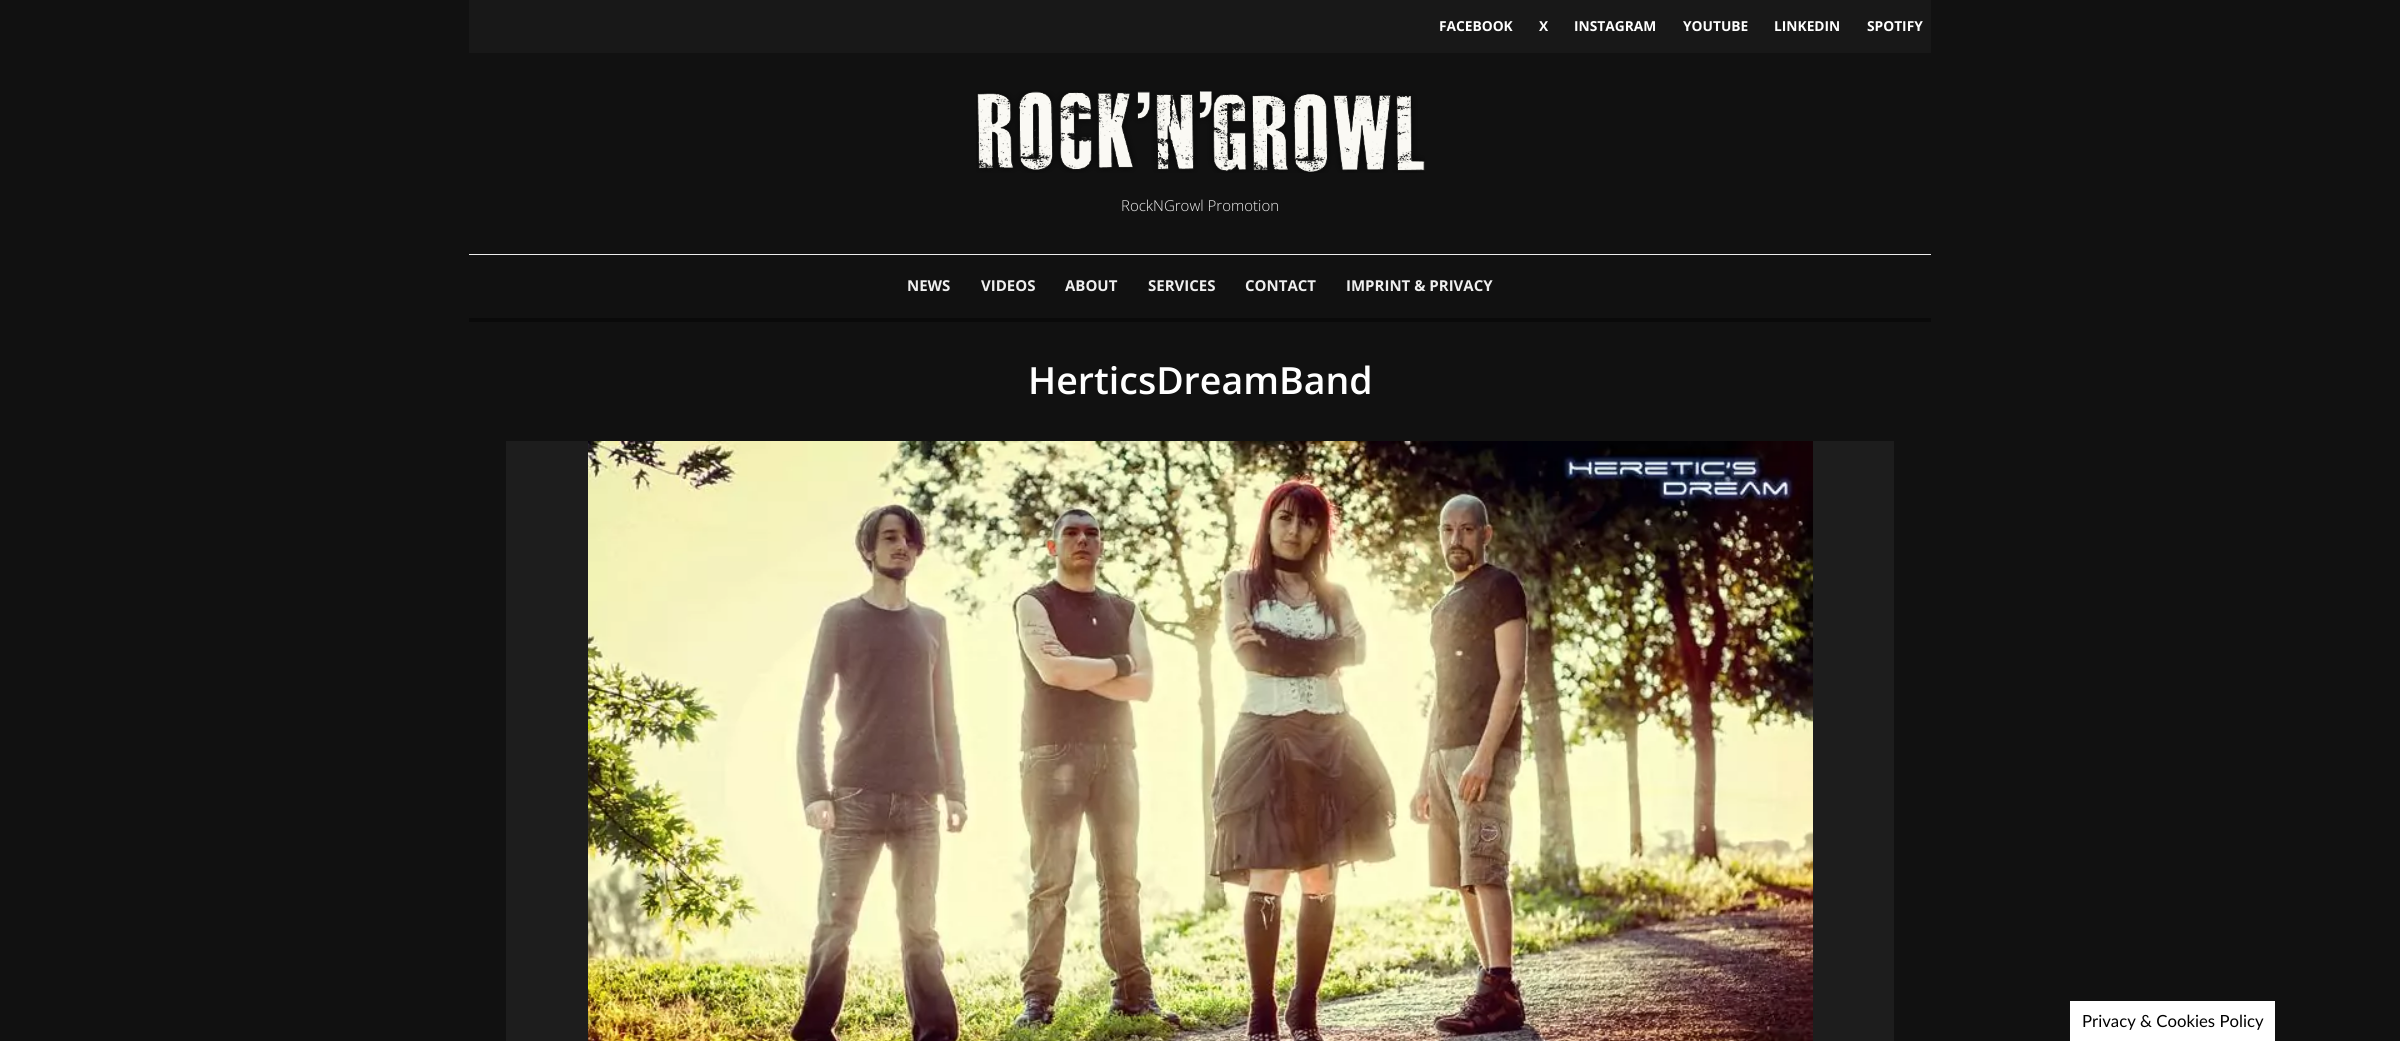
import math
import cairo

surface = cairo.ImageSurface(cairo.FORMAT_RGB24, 2400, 1041)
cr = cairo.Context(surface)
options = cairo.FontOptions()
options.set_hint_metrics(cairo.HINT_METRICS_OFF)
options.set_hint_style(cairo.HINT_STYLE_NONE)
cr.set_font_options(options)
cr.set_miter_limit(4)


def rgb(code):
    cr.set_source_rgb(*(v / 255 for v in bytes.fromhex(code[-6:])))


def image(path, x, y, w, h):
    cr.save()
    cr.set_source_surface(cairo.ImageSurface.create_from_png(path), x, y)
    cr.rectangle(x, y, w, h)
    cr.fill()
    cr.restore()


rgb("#111111")
cr.paint()
rgb("#181818")
cr.rectangle(469, 0, 1462, 53)
cr.fill()
image("img/1.png", 976, 90, 449, 83)
for x, y, w, h, color in [
    (469, 254, 1462, 1, "#eeeeee"),
    (469, 318, 1462, 4, "#0a0a0a"),
    (506, 441, 1388, 600, "#1d1d1d"),
]:
    rgb(color)
    cr.rectangle(x, y, w, h)
    cr.fill()
image("img/2.png", 588, 441, 1225, 600)
rgb("#ffffff")
cr.rectangle(2070, 1001, 205, 40)
cr.fill()
cr.select_font_face("Open Sans", cairo.FONT_SLANT_NORMAL, cairo.FONT_WEIGHT_BOLD)
cr.set_font_size(13.75)
for x, y, s in [
    (1439, 31, "FACEBOOK"),
    (1539, 31, "X"),
    (1574, 31, "INSTAGRAM"),
    (1683, 31, "YOUTUBE"),
    (1774, 31, "LINKEDIN"),
    (1867, 31, "SPOTIFY"),
]:
    cr.move_to(x, y)
    cr.show_text(s)
cr.select_font_face("Open Sans Light")
cr.set_font_size(15)
rgb("#efefef")
cr.move_to(1121, 211)
cr.show_text("RockNGrowl Promotion")
cr.select_font_face("Open Sans", cairo.FONT_SLANT_NORMAL, cairo.FONT_WEIGHT_BOLD)
for x, y, s in [
    (907, 291, "NEWS"),
    (981, 291, "VIDEOS"),
    (1065, 291, "ABOUT"),
    (1148, 291, "SERVICES"),
    (1245, 291, "CONTACT"),
    (1346, 291, "IMPRINT & PRIVACY"),
]:
    cr.move_to(x, y)
    cr.show_text(s)
cr.select_font_face("Open Sans SemiBold")
cr.set_font_size(37.5)
rgb("#ffffff")
cr.move_to(1028, 394)
cr.show_text("HerticsDreamBand")
cr.select_font_face("Lato")
cr.set_font_size(16.75)
rgb("#000000")
cr.move_to(2082, 1027)
cr.show_text("Privacy & Cookies Policy")
surface.write_to_png("page.png")
